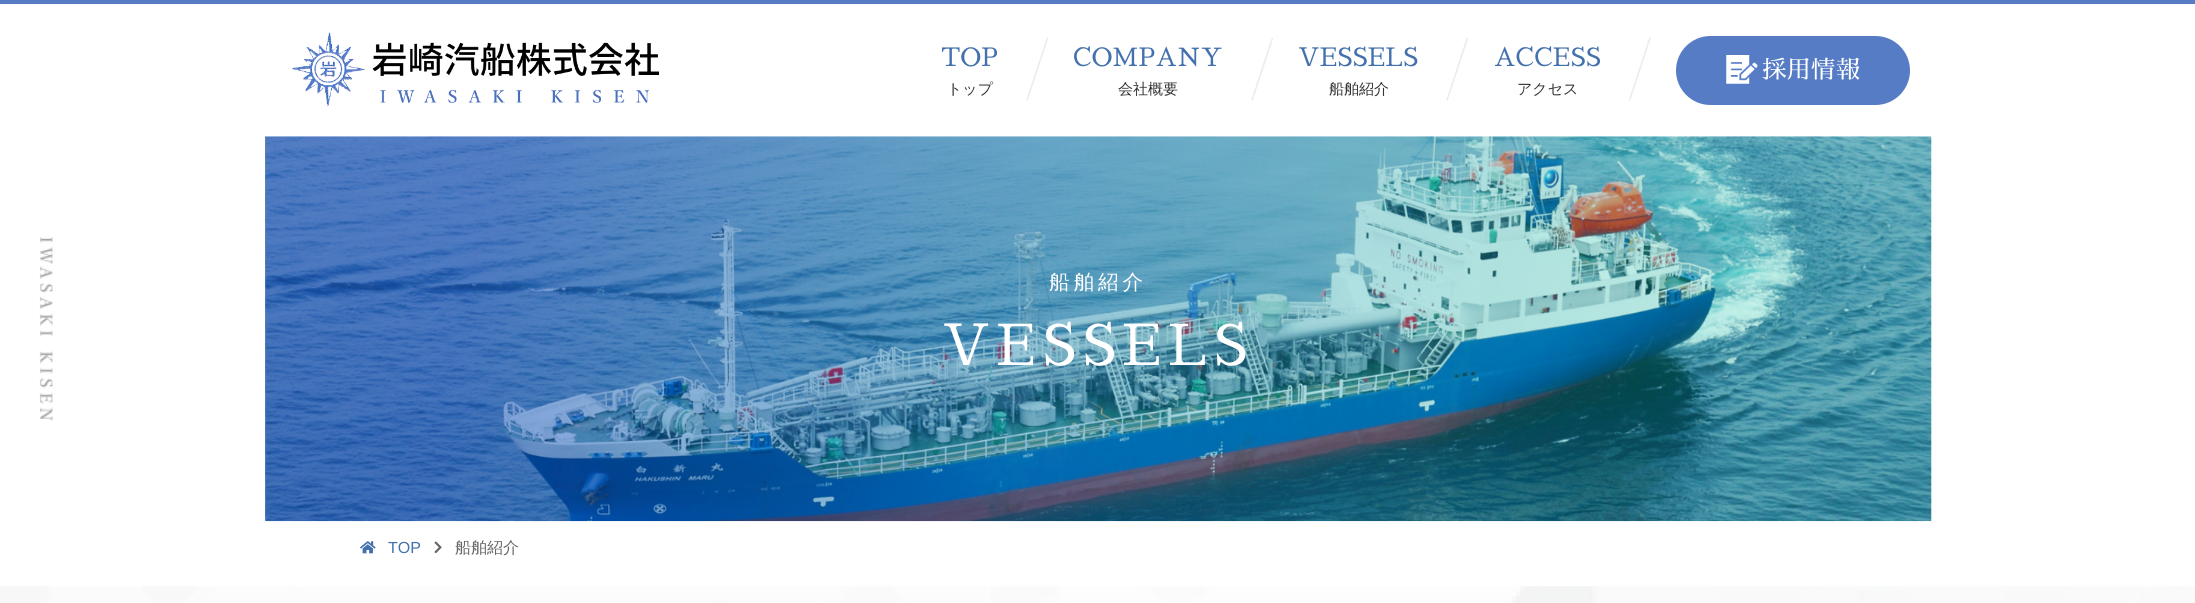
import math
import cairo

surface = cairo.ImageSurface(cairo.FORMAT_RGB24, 2195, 603)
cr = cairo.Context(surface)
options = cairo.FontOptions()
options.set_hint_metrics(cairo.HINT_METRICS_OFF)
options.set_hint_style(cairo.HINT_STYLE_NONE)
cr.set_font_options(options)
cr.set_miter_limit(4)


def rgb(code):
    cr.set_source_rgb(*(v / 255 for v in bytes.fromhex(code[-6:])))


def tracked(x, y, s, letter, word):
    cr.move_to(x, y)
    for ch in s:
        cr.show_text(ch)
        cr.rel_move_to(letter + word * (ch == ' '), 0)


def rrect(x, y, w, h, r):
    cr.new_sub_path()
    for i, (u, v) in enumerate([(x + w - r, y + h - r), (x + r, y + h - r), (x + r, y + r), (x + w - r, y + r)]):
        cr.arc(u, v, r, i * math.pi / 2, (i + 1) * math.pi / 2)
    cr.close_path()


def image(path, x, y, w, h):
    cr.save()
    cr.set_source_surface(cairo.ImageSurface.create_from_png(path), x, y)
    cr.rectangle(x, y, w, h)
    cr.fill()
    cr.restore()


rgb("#ffffff")
cr.paint()
rgb("#557cc5")
cr.rectangle(0, 0, 2195, 4)
cr.fill()
image("img/1.png", 292, 32, 368, 75)
image("img/2.png", 1026, 37, 22, 64)
image("img/3.png", 1251, 37, 22, 64)
image("img/2.png", 1446, 37, 22, 64)
image("img/4.png", 1629, 37, 22, 64)
rrect(1676, 36, 234, 69, 34.5)
cr.fill()
image("img/5.png", 1726, 55, 32, 29)
image("img/6.png", 39, 237, 14, 184)
image("img/7.png", 265, 136, 1667, 386)
image("img/8.png", 360, 541, 16, 13)
image("img/9.png", 434, 541, 8, 13)
image("img/10.png", 0, 586, 2195, 17)
cr.select_font_face("Sawarabi Mincho")
cr.set_font_size(25.25)
rgb("#4371ad")
cr.move_to(941, 66)
cr.show_text("TOP")
cr.select_font_face("WenQuanYi Zen Hei Medium")
cr.set_font_size(15)
rgb("#333333")
cr.move_to(947, 94)
cr.show_text("トップ")
cr.select_font_face("Sawarabi Mincho")
cr.set_font_size(25.25)
rgb("#4371ad")
cr.move_to(1073, 66)
cr.show_text("COMPANY")
cr.select_font_face("WenQuanYi Zen Hei Medium")
cr.set_font_size(15)
rgb("#333333")
cr.move_to(1118, 94)
cr.show_text("会社概要")
cr.select_font_face("Sawarabi Mincho")
cr.set_font_size(25.25)
rgb("#4371ad")
cr.move_to(1298, 66)
cr.show_text("VESSELS")
cr.select_font_face("WenQuanYi Zen Hei Medium")
cr.set_font_size(15)
rgb("#333333")
cr.move_to(1329, 94)
cr.show_text("船舶紹介")
cr.select_font_face("Sawarabi Mincho")
cr.set_font_size(25.25)
rgb("#4371ad")
cr.move_to(1494, 66)
cr.show_text("ACCESS")
cr.select_font_face("WenQuanYi Zen Hei Medium")
cr.set_font_size(15)
rgb("#333333")
cr.move_to(1517, 94)
cr.show_text("アクセス")
cr.select_font_face("Sawarabi Mincho")
cr.set_font_size(24.5)
rgb("#ffffff")
cr.move_to(1762, 78)
cr.show_text("採用情報")
cr.select_font_face("WenQuanYi Zen Hei Medium")
cr.set_font_size(20.5)
tracked(1049, 289, "船舶紹介", 4, 0)
cr.select_font_face("Sawarabi Mincho")
cr.set_font_size(56.25)
tracked(942, 365, "VESSELS", 6.25, 0)
cr.select_font_face("Liberation Sans")
cr.set_font_size(16)
rgb("#4371ad")
cr.move_to(388, 553)
cr.show_text("TOP")
cr.select_font_face("WenQuanYi Zen Hei Medium")
rgb("#666666")
cr.move_to(455, 553)
cr.show_text("船舶紹介")
surface.write_to_png("page.png")
